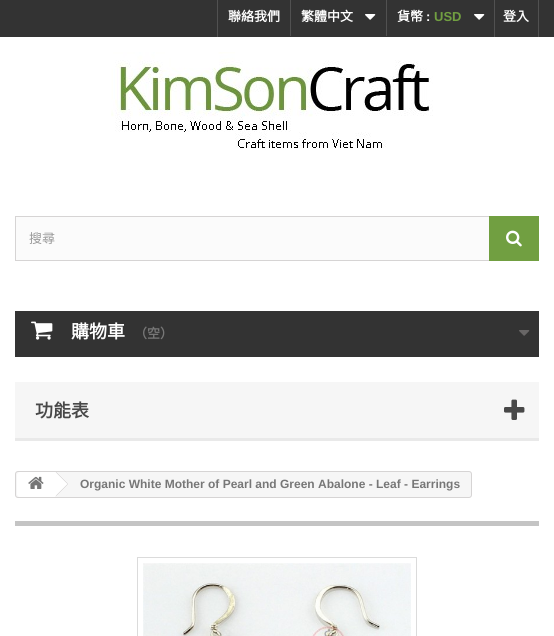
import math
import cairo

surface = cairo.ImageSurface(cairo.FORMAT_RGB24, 554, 636)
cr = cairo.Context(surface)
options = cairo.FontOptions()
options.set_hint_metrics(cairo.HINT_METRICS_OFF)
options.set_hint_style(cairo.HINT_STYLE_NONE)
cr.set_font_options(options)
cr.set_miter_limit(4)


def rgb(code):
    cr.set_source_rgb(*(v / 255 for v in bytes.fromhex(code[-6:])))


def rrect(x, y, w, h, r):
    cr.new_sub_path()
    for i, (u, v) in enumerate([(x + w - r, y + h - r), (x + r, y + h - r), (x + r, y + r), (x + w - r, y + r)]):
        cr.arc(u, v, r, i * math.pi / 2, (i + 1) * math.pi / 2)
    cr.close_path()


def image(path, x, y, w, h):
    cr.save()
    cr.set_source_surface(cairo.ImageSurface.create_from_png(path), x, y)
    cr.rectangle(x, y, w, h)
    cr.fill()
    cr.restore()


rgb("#ffffff")
cr.paint()
for x, y, w, h, color in [
    (0, 0, 554, 37, "#333333"),
    (217, 0, 1, 37, "#515151"),
    (290, 0, 1, 36, "#515151"),
]:
    rgb(color)
    cr.rectangle(x, y, w, h)
    cr.fill()
image("img/1.png", 365, 14, 11, 6)
cr.rectangle(386, 0, 1, 36)
cr.fill()
image("img/1.png", 474, 14, 11, 6)
cr.rectangle(538, 0, 1, 37)
cr.fill()
cr.rectangle(494, 0, 1, 37)
cr.fill()
image("img/2.png", 111, 52, 322, 96)
rgb("#fbfbfb")
cr.rectangle(16, 217, 473, 43)
cr.fill()
cr.rectangle(15.5, 216.5, 523, 44)
rgb("#d6d4d4")
cr.set_line_width(1)
cr.stroke()
rgb("#719f41")
cr.rectangle(489, 216, 50, 45)
cr.fill()
image("img/3.png", 506, 230, 16, 17)
rgb("#333333")
cr.rectangle(15, 311, 524, 46)
cr.fill()
image("img/4.png", 31, 321, 22, 19)
image("img/5.png", 519, 330, 11, 6)
rgb("#f6f6f6")
cr.rectangle(15, 382, 524, 56)
cr.fill()
rgb("#e9e9e9")
cr.rectangle(15, 438, 524, 3)
cr.fill()
image("img/6.png", 504, 399, 21, 21)
rgb("#f6f6f6")
rrect(15.5, 471.5, 456, 26, 2.5)
cr.fill_preserve()
rgb("#d6d4d4")
cr.stroke()
rgb("#ffffff")
cr.new_path()
cr.move_to(20, 472)
cr.line_to(55, 472)
cr.line_to(55, 497)
cr.line_to(20, 497)
cr.curve_to(18.5, 497, 17, 495.5, 17, 494)
cr.line_to(17, 475)
cr.curve_to(17, 473.5, 18.5, 472, 20, 472)
cr.close_path()
cr.fill()
image("img/7.png", 28, 476, 16, 13)
cr.new_path()
cr.move_to(57.5, 472.5)
cr.line_to(67.5, 482.5)
cr.curve_to(68, 483.5, 68, 484.5, 67.5, 485.5)
cr.line_to(57.5, 495.5)
cr.curve_to(56.5, 496, 55.5, 496, 54.5, 495.5)
cr.line_to(44.5, 485.5)
cr.curve_to(44, 484.5, 44, 483.5, 44.5, 482.5)
cr.line_to(54.5, 472.5)
cr.curve_to(55.5, 472, 56.5, 472, 57.5, 472.5)
cr.close_path()
cr.fill()
rgb("#d6d4d4")
cr.new_path()
cr.move_to(56.5, 472)
cr.line_to(68, 483.5)
cr.line_to(67.5, 484)
cr.line_to(56, 472.5)
cr.close_path()
cr.move_to(67.5, 484)
cr.line_to(68, 484.5)
cr.line_to(56.5, 496)
cr.line_to(56, 495.5)
cr.close_path()
cr.fill()
rgb("#c4c4c4")
cr.rectangle(15, 521, 524, 5)
cr.fill()
cr.rectangle(137.5, 557.5, 279, 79)
rgb("#dbdbdb")
cr.stroke()
image("img/8.png", 143, 563, 268, 73)
cr.select_font_face("Noto Sans CJK TC", cairo.FONT_SLANT_NORMAL, cairo.FONT_WEIGHT_BOLD)
cr.set_font_size(13)
rgb("#ffffff")
for x, y, s in [
    (228, 21, "聯絡我們"),
    (301, 21, "繁體中文"),
    (397, 21, "貨幣"),
]:
    cr.move_to(x, y)
    cr.show_text(s)
cr.select_font_face("Liberation Sans", cairo.FONT_SLANT_NORMAL, cairo.FONT_WEIGHT_BOLD)
cr.move_to(426, 21)
cr.show_text(":")
rgb("#719f41")
cr.move_to(434, 21)
cr.show_text("USD")
cr.select_font_face("Noto Sans CJK TC", cairo.FONT_SLANT_NORMAL, cairo.FONT_WEIGHT_BOLD)
rgb("#ffffff")
cr.move_to(503, 21)
cr.show_text("登入")
cr.select_font_face("Noto Sans CJK TC")
rgb("#999999")
cr.move_to(29, 243)
cr.show_text("搜尋")
cr.select_font_face("Noto Sans CJK TC", cairo.FONT_SLANT_NORMAL, cairo.FONT_WEIGHT_BOLD)
cr.set_font_size(18)
rgb("#ffffff")
cr.move_to(71, 338)
cr.show_text("購物車")
cr.set_font_size(13)
rgb("#777777")
cr.move_to(134, 338)
cr.show_text("（空）")
cr.set_font_size(18)
rgb("#484848")
cr.move_to(35, 417)
cr.show_text("功能表")
cr.select_font_face("Liberation Sans", cairo.FONT_SLANT_NORMAL, cairo.FONT_WEIGHT_BOLD)
cr.set_font_size(12)
rgb("#777777")
cr.move_to(80, 488)
cr.show_text("Organic White Mother of Pearl and Green Abalone - Leaf - Earrings")
surface.write_to_png("page.png")
